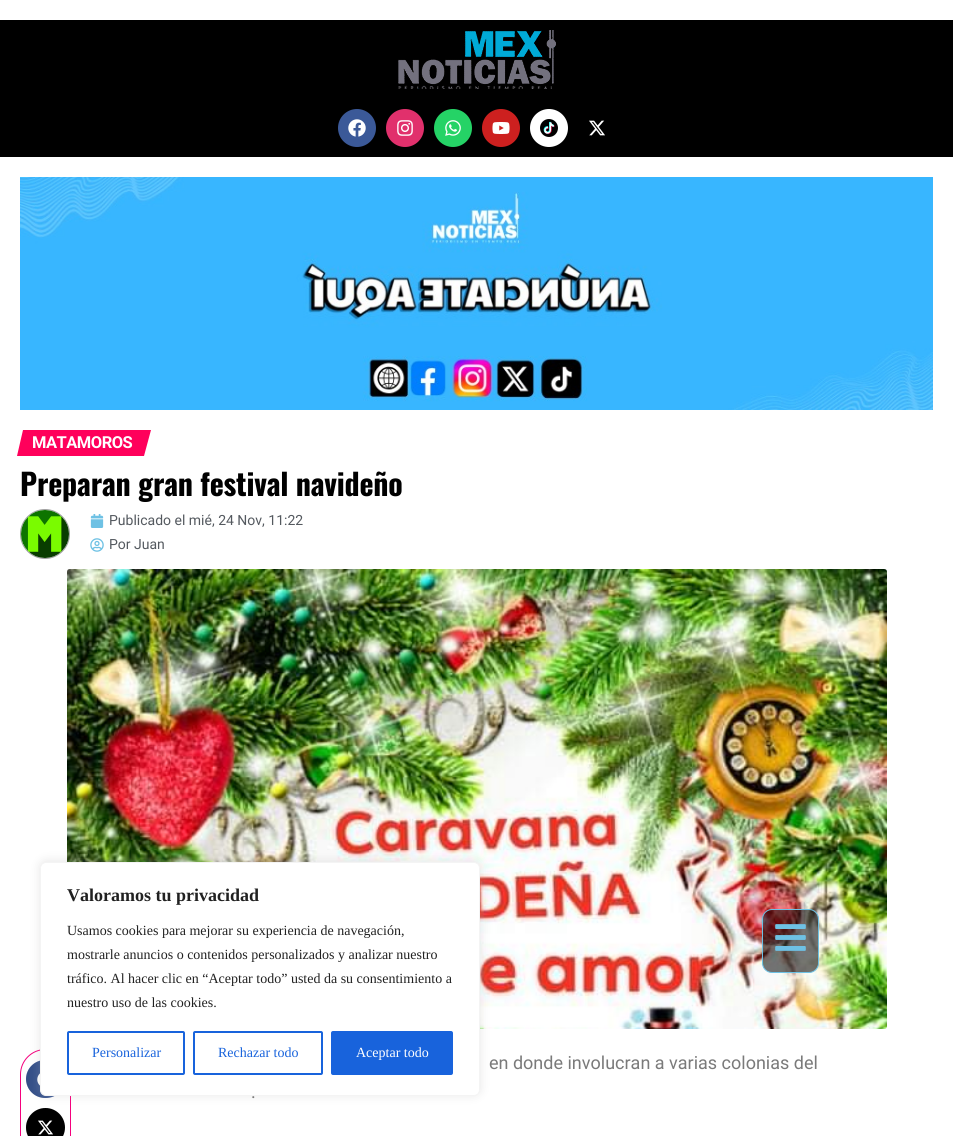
import math
import cairo

surface = cairo.ImageSurface(cairo.FORMAT_RGB24, 953, 1136)
cr = cairo.Context(surface)
options = cairo.FontOptions()
options.set_hint_metrics(cairo.HINT_METRICS_OFF)
options.set_hint_style(cairo.HINT_STYLE_NONE)
cr.set_font_options(options)
cr.set_miter_limit(4)


def rgb(code):
    cr.set_source_rgb(*(v / 255 for v in bytes.fromhex(code[-6:])))


def tracked(x, y, s, letter, word):
    cr.move_to(x, y)
    for ch in s:
        cr.show_text(ch)
        cr.rel_move_to(letter + word * (ch == ' '), 0)


def rrect(x, y, w, h, r):
    cr.new_sub_path()
    for i, (u, v) in enumerate([(x + w - r, y + h - r), (x + r, y + h - r), (x + r, y + r), (x + w - r, y + r)]):
        cr.arc(u, v, r, i * math.pi / 2, (i + 1) * math.pi / 2)
    cr.close_path()


def soft_shadow(x, y, w, h, r, blur, alpha):
    cr.push_group_with_content(cairo.CONTENT_ALPHA)
    cr.set_operator(cairo.OPERATOR_SOURCE)
    for i in range(15, -16, -2):
        e = blur * i / 6
        if min(w, h) + 2 * e > 0:
            cr.set_source_rgba(0, 0, 0, alpha * math.erfc((i - 1) / 8.5) / 2)
            rrect(x - e, y - e, w + 2 * e, h + 2 * e, max(0, min(r + e + blur * .6, min(w, h) / 2 + e)))
            cr.fill()
    cr.mask(cr.pop_group())


def image(path, x, y, w, h):
    cr.save()
    cr.set_source_surface(cairo.ImageSurface.create_from_png(path), x, y)
    cr.rectangle(x, y, w, h)
    cr.fill()
    cr.restore()


rgb("#ffffff")
cr.paint()
rgb("#000000")
cr.rectangle(0, 20, 953, 137)
cr.fill()
image("img/1.png", 398, 30, 158, 59)
rgb("#3b5998")
cr.arc(357, 128, 19, 0, 2 * math.pi)
cr.fill()
image("img/2.png", 348, 119, 18, 18)
rgb("#e1306c")
cr.arc(405, 128, 19, 0, 2 * math.pi)
cr.fill()
image("img/3.png", 397, 120, 16, 16)
rgb("#25d366")
cr.arc(453, 128, 19, 0, 2 * math.pi)
cr.fill()
image("img/4.png", 445, 120, 16, 16)
rgb("#cd201f")
cr.arc(501, 128, 19, 0, 2 * math.pi)
cr.fill()
image("img/5.png", 492, 122, 18, 12)
rgb("#ffffff")
cr.arc(549, 128, 19, 0, 2 * math.pi)
cr.fill()
image("img/6.png", 540, 119, 18, 18)
image("img/7.png", 589, 120, 16, 16)
image("img/13.png", 67, 569, 820, 460)
cr.set_source_rgba(0, 0, 0, 0.54)
rrect(762.5, 909.5, 56, 63, 9.5)
cr.fill_preserve()
rgb("#6ec1e4")
cr.set_line_width(1)
cr.stroke()
image("img/8.png", 775, 924, 31, 27)
image("img/9.png", 20, 177, 913, 233)
rgb("#ff005b")
cr.new_path()
cr.move_to(23, 430)
cr.line_to(151, 430)
cr.line_to(144, 456)
cr.line_to(17, 456)
cr.close_path()
cr.fill()
cr.arc(45, 534, 24.5, 0, 2 * math.pi)
rgb("#a1a1a1")
cr.stroke()
image("img/10.png", 21, 510, 48, 48)
image("img/11.png", 90, 514, 14, 14)
image("img/12.png", 90, 538, 14, 14)
rrect(20.5, 1049.5, 50, 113, 25)
rgb("#f5007d")
cr.stroke()
rgb("#3b5998")
rrect(26, 1060, 39, 38, 19)
cr.fill()
gradient = cairo.LinearGradient(26, 1079, 65, 1079)
gradient.add_color_stop_rgba(0, 0, 0, 0, 0.12)
gradient.add_color_stop_rgba(1, 0, 0, 0, 0)
cr.set_source(gradient)
rrect(26, 1060, 39, 38, 19)
cr.fill()
image("img/14.png", 37, 1073, 3, 13)
rgb("#000000")
cr.arc(45.5, 1127.5, 19.5, 0, 2 * math.pi)
cr.fill()
gradient = cairo.LinearGradient(26, 1128, 65, 1128)
gradient.add_color_stop_rgba(0, 0, 0, 0, 0.12)
gradient.add_color_stop_rgba(1, 0, 0, 0, 0)
cr.set_source(gradient)
cr.arc(45.5, 1127.5, 19.5, 0, 2 * math.pi)
cr.fill()
image("img/15.png", 38, 1120, 15, 15)
rgb("#acabab")
soft_shadow(40, 861, 440, 234, 6, 5, 0.3)
rgb("#ffffff")
rrect(40.5, 862.5, 439, 233, 5.5)
cr.fill_preserve()
rgb("#f4f4f4")
cr.stroke()
rrect(68, 1032, 116, 42, 1)
rgb("#1863dc")
cr.set_line_width(2)
cr.stroke()
rrect(194, 1032, 128, 42, 1)
cr.stroke()
rrect(332, 1032, 120, 42, 1)
cr.fill_preserve()
cr.stroke()
cr.select_font_face("Roboto", cairo.FONT_SLANT_NORMAL, cairo.FONT_WEIGHT_BOLD)
cr.set_font_size(16.5)
rgb("#ffffff")
tracked(32, 448, "MATAMOROS", -0.5, 0)
cr.select_font_face("Oswald", cairo.FONT_SLANT_NORMAL, cairo.FONT_WEIGHT_BOLD)
cr.set_font_size(30)
rgb("#000000")
tracked(20, 496, "Preparan gran festival navideño", -0.2, 0)
cr.select_font_face("Roboto")
cr.set_font_size(14)
rgb("#54595f")
cr.move_to(109, 525)
cr.show_text("Publicado el mié, 24 Nov, 11:22")
cr.move_to(109, 549)
cr.show_text("Por Juan")
cr.set_font_size(18)
rgb("#7a7a7a")
cr.move_to(489, 1069)
cr.show_text("en donde involucran a varias colonias del")
cr.move_to(251, 1098)
cr.show_text(".")
cr.select_font_face("Liberation Serif", cairo.FONT_SLANT_NORMAL, cairo.FONT_WEIGHT_BOLD)
rgb("#212121")
cr.move_to(67, 901)
cr.show_text("Valoramos tu privacidad")
cr.select_font_face("Liberation Serif")
cr.set_font_size(14)
for x, y, s in [
    (67, 935, "Usamos cookies para mejorar su experiencia de navegación,"),
    (67, 959, "mostrarle anuncios o contenidos personalizados y analizar nuestro"),
    (67, 983, "tráfico. Al hacer clic en “Aceptar todo” usted da su consentimiento a"),
    (67, 1007, "nuestro uso de las cookies."),
]:
    cr.move_to(x, y)
    cr.show_text(s)
rgb("#1863dc")
cr.move_to(92, 1057)
cr.show_text("Personalizar")
cr.move_to(218, 1057)
cr.show_text("Rechazar todo")
rgb("#ffffff")
cr.move_to(356, 1057)
cr.show_text("Aceptar todo")
surface.write_to_png("page.png")
